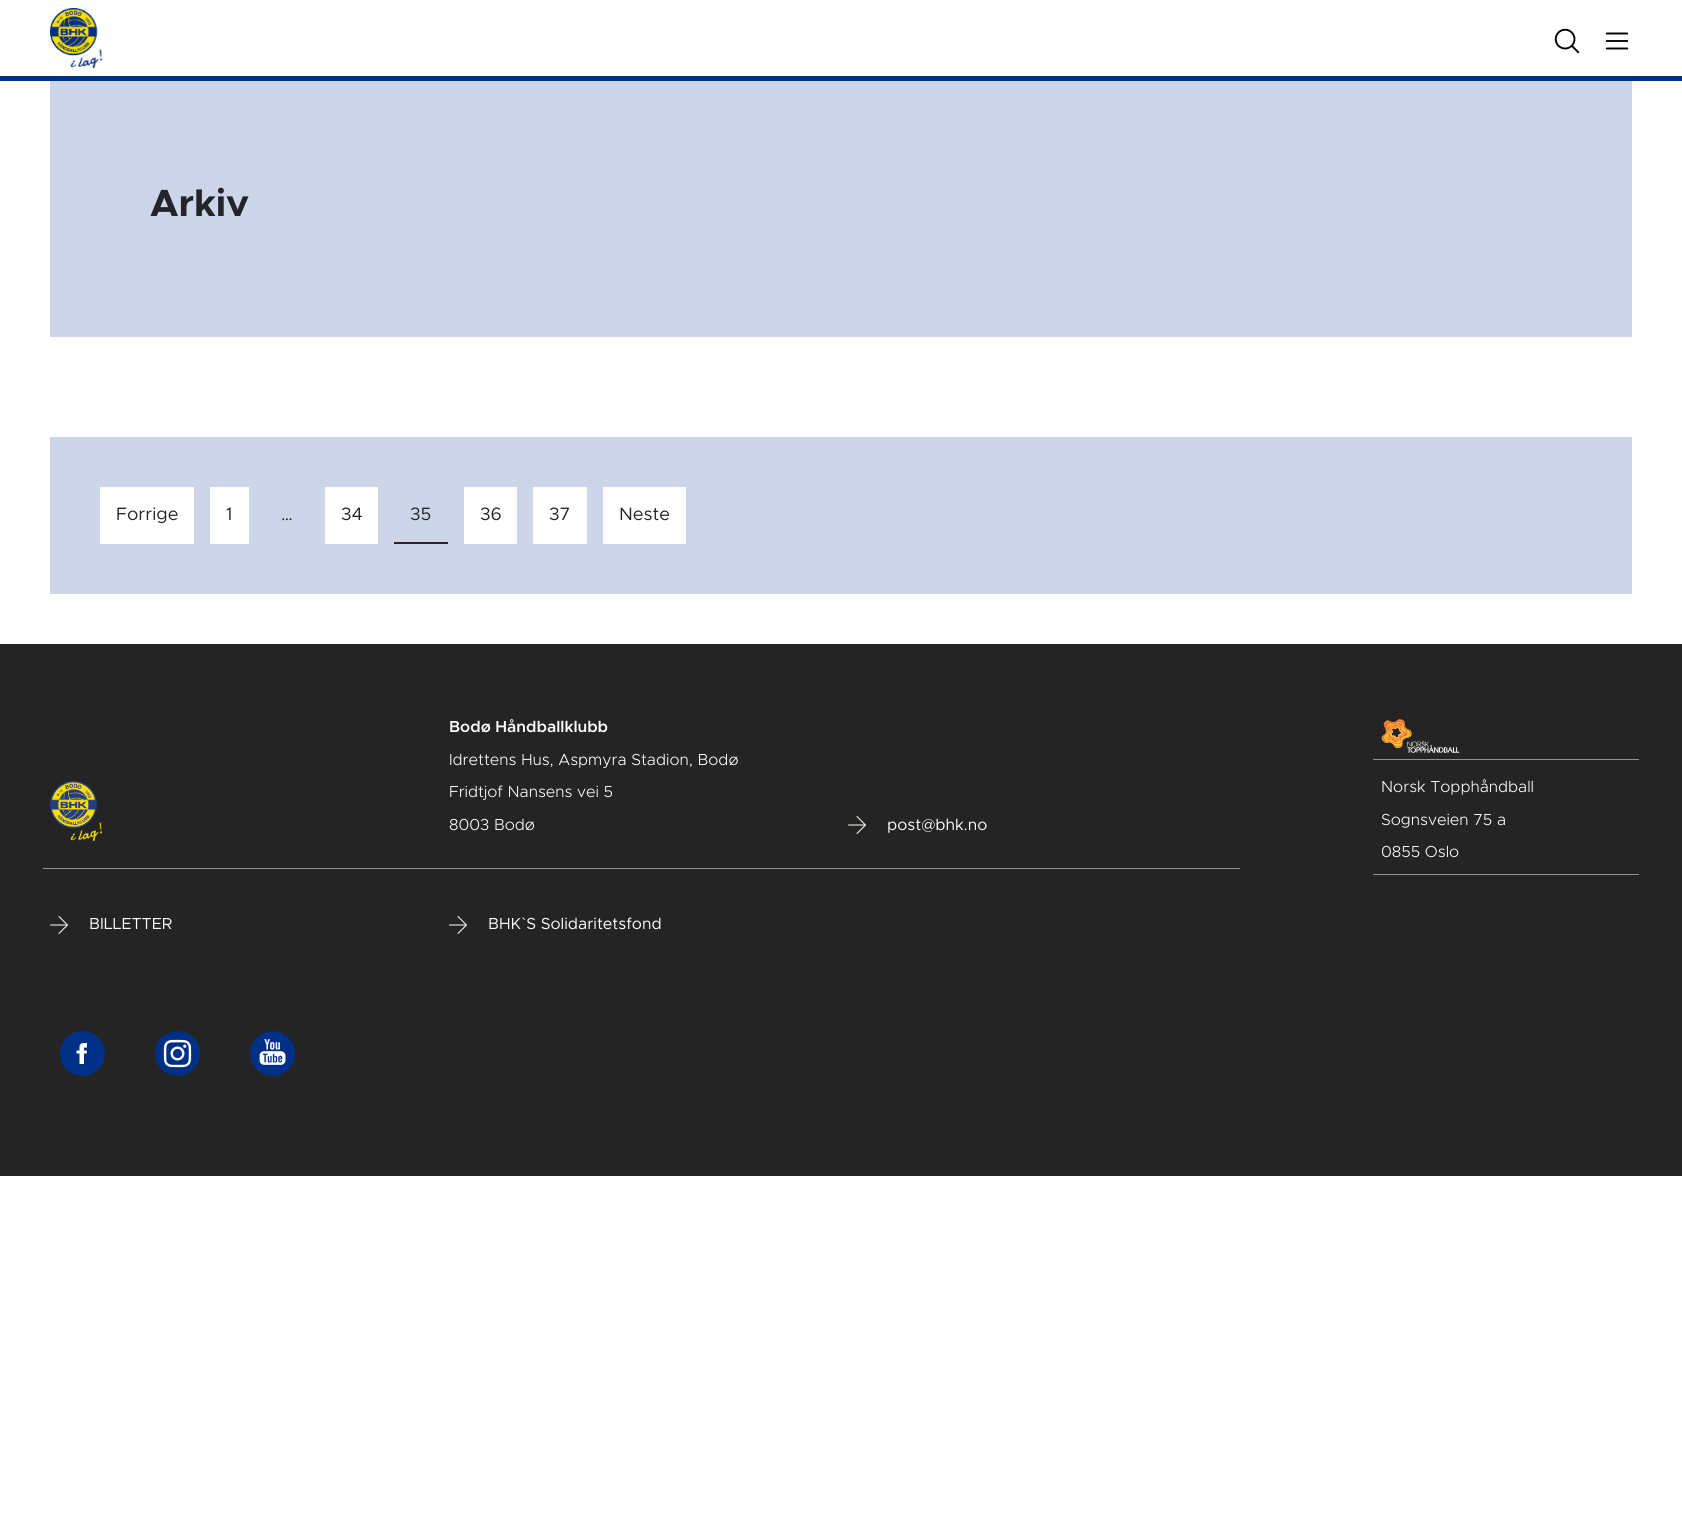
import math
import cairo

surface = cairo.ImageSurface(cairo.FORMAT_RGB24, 1682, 1523)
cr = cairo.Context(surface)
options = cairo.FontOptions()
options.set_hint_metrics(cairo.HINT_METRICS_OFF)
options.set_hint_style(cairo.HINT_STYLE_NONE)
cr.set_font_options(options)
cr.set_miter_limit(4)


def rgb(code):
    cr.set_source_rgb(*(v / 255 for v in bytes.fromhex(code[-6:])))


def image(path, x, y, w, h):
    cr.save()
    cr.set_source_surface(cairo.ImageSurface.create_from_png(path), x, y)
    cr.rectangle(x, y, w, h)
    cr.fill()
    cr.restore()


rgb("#ffffff")
cr.paint()
image("img/1.png", 50, 8, 53, 60)
image("img/2.png", 1554, 28, 26, 26)
image("img/3.png", 1605, 32, 24, 18)
for x, y, w, h, color in [
    (0, 76, 1682, 5, "#002f87"),
    (50, 81, 1582, 256, "#cdd6e8"),
    (50, 437, 1582, 157, "#cdd6e8"),
    (100, 487, 94, 57, "#ffffff"),
    (210, 487, 39, 57, "#ffffff"),
    (325, 487, 53, 57, "#ffffff"),
    (394, 542, 54, 2, "#242424"),
    (464, 487, 53, 57, "#ffffff"),
    (533, 487, 54, 57, "#ffffff"),
    (603, 487, 83, 57, "#ffffff"),
    (0, 644, 1682, 532, "#242424"),
    (43, 868, 1197, 1, "#929292"),
]:
    rgb(color)
    cr.rectangle(x, y, w, h)
    cr.fill()
image("img/4.png", 50, 781, 52, 60)
image("img/5.png", 848, 816, 18, 18)
image("img/5.png", 50, 916, 18, 18)
image("img/5.png", 449, 916, 18, 18)
cr.rectangle(1373, 759, 266, 1)
cr.fill()
image("img/6.png", 1381, 719, 79, 34)
cr.rectangle(1373, 874, 266, 1)
cr.fill()
image("img/7.png", 60, 1031, 45, 45)
image("img/8.png", 155, 1031, 45, 45)
image("img/9.png", 250, 1031, 45, 45)
cr.select_font_face("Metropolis", cairo.FONT_SLANT_NORMAL, cairo.FONT_WEIGHT_BOLD)
cr.set_font_size(38)
rgb("#212529")
cr.move_to(150, 216)
cr.show_text("Arkiv")
cr.select_font_face("Metropolis")
cr.set_font_size(18)
for x, y, s in [
    (116, 520, "Forrige"),
    (226, 520, "1"),
    (281, 520, "…"),
    (341, 520, "34"),
    (410, 520, "35"),
    (480, 520, "36"),
    (549, 520, "37"),
    (619, 520, "Neste"),
]:
    cr.move_to(x, y)
    cr.show_text(s)
cr.select_font_face("Metropolis SemiBold")
cr.set_font_size(16)
rgb("#ffffff")
cr.move_to(449, 732)
cr.show_text("Bodø Håndballklubb")
cr.select_font_face("Metropolis Light")
for x, y, s in [
    (449, 765, "Idrettens Hus, Aspmyra Stadion, Bodø"),
    (449, 797, "Fridtjof Nansens vei 5"),
    (449, 830, "8003 Bodø"),
]:
    cr.move_to(x, y)
    cr.show_text(s)
cr.select_font_face("Metropolis")
for x, y, s in [
    (887, 830, "post@bhk.no"),
    (89, 929, "BILLETTER"),
    (488, 929, "BHK`S Solidaritetsfond"),
]:
    cr.move_to(x, y)
    cr.show_text(s)
cr.select_font_face("Metropolis Light")
for x, y, s in [
    (1381, 792, "Norsk Topphåndball"),
    (1381, 825, "Sognsveien 75 a"),
    (1381, 857, "0855 Oslo"),
]:
    cr.move_to(x, y)
    cr.show_text(s)
surface.write_to_png("page.png")
